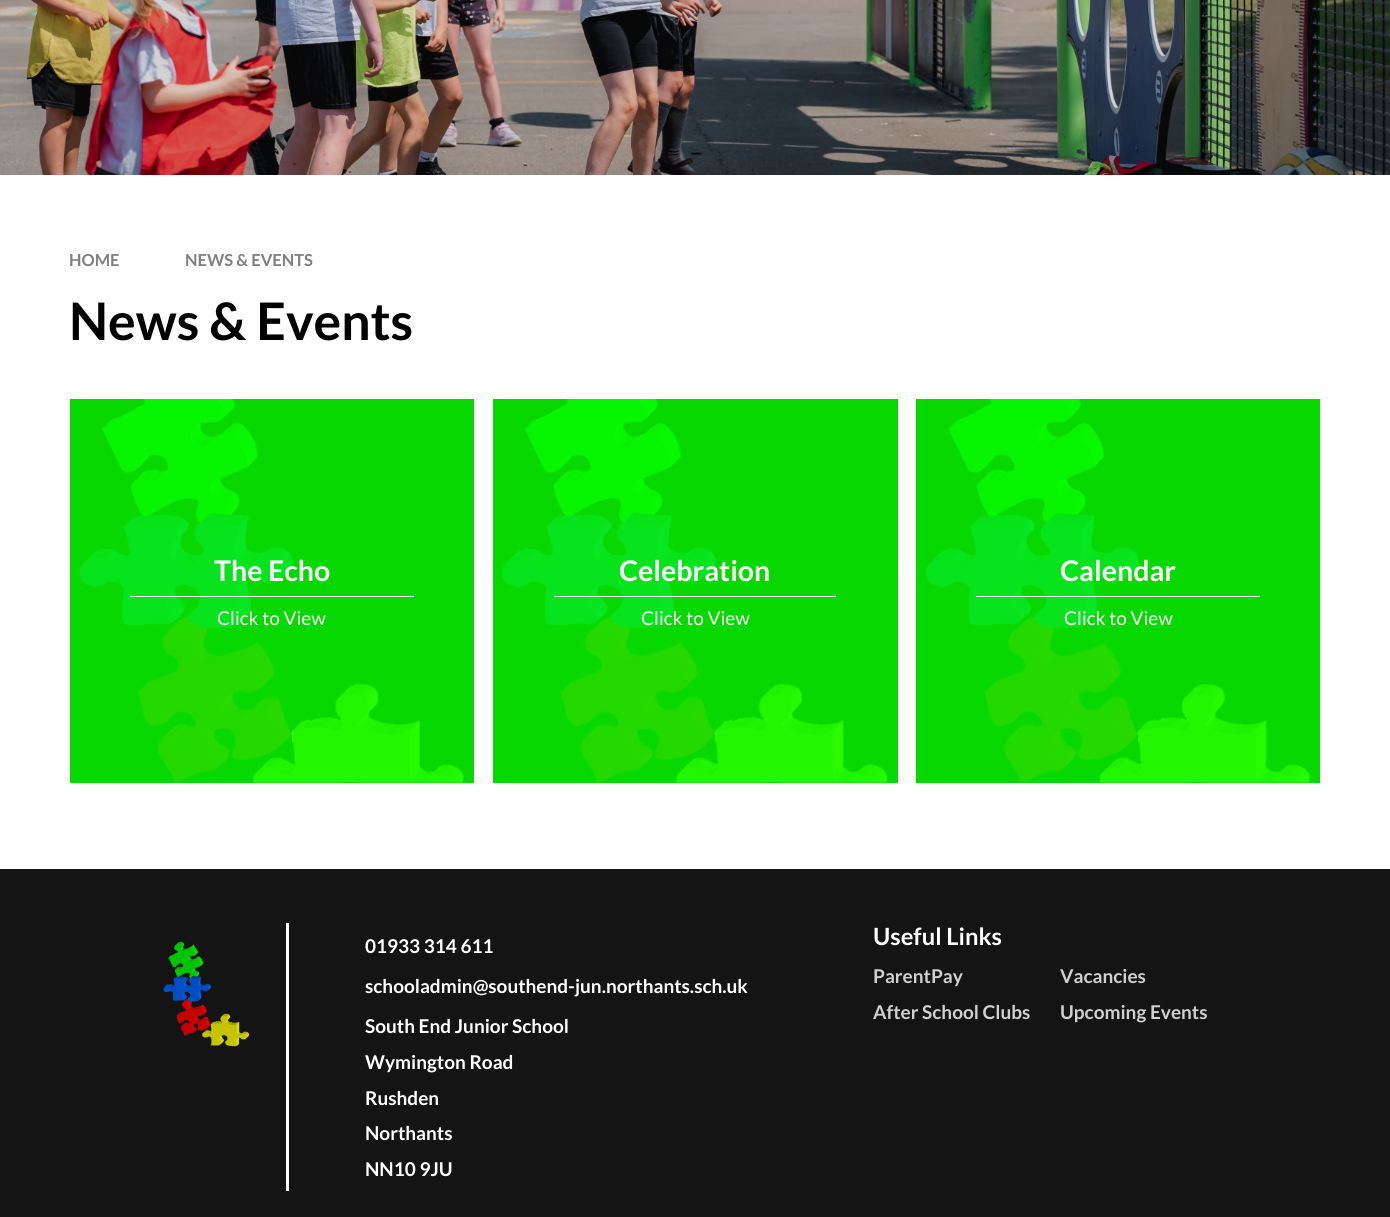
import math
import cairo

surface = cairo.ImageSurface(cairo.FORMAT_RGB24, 1390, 1217)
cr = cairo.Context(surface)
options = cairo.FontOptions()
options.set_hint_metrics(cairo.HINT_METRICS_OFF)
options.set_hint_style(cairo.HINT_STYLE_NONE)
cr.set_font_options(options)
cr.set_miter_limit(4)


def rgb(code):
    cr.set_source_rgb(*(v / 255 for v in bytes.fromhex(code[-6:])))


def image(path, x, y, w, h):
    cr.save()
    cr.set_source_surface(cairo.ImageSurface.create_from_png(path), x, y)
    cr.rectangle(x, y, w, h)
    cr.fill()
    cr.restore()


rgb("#ffffff")
cr.paint()
image("img/1.png", 0, 0, 1390, 175)
rgb("#07d900")
cr.rectangle(70, 399, 404, 384)
cr.fill()
image("img/2.png", 79, 399, 386, 384)
rgb("#ffffff")
cr.rectangle(130, 596, 284, 1)
cr.fill()
rgb("#07d900")
cr.rectangle(493, 399, 405, 384)
cr.fill()
image("img/3.png", 501, 399, 387, 384)
rgb("#ffffff")
cr.rectangle(554, 596, 282, 1)
cr.fill()
rgb("#07d900")
cr.rectangle(916, 399, 404, 384)
cr.fill()
image("img/4.png", 925, 399, 386, 384)
for x, y, w, h, color in [
    (976, 596, 284, 1, "#ffffff"),
    (0, 869, 1390, 348, "#141414"),
    (286, 923, 3, 268, "#ffffff"),
]:
    rgb(color)
    cr.rectangle(x, y, w, h)
    cr.fill()
image("img/5.png", 163, 941, 87, 106)
cr.select_font_face("Lato", cairo.FONT_SLANT_NORMAL, cairo.FONT_WEIGHT_BOLD)
cr.set_font_size(16.5)
rgb("#808080")
cr.move_to(69, 266)
cr.show_text("HOME")
cr.move_to(185, 266)
cr.show_text("NEWS & EVENTS")
cr.set_font_size(51.75)
rgb("#000000")
cr.move_to(69, 340)
cr.show_text("News & Events")
cr.set_font_size(28.5)
rgb("#ffffff")
cr.move_to(214, 581)
cr.show_text("The Echo")
cr.select_font_face("Lato")
cr.set_font_size(19)
cr.move_to(217, 625)
cr.show_text("Click to View")
cr.select_font_face("Lato", cairo.FONT_SLANT_NORMAL, cairo.FONT_WEIGHT_BOLD)
cr.set_font_size(28.5)
cr.move_to(619, 581)
cr.show_text("Celebration")
cr.select_font_face("Lato")
cr.set_font_size(19)
cr.move_to(641, 625)
cr.show_text("Click to View")
cr.select_font_face("Lato", cairo.FONT_SLANT_NORMAL, cairo.FONT_WEIGHT_BOLD)
cr.set_font_size(28.5)
cr.move_to(1060, 581)
cr.show_text("Calendar")
cr.select_font_face("Lato")
cr.set_font_size(19)
cr.move_to(1064, 625)
cr.show_text("Click to View")
cr.select_font_face("Lato", cairo.FONT_SLANT_NORMAL, cairo.FONT_WEIGHT_BOLD)
for x, y, s in [
    (365, 953, "01933 314 611"),
    (365, 993, "schooladmin@southend-jun.northants.sch.uk"),
    (365, 1033, "South End Junior School"),
    (365, 1069, "Wymington Road"),
    (365, 1105, "Rushden"),
    (365, 1140, "Northants"),
    (365, 1176, "NN10 9JU"),
]:
    cr.move_to(x, y)
    cr.show_text(s)
cr.set_font_size(23.75)
cr.move_to(873, 945)
cr.show_text("Useful Links")
cr.set_font_size(19)
rgb("#d0d0d0")
for x, y, s in [
    (873, 983, "ParentPay"),
    (1060, 983, "Vacancies"),
    (873, 1019, "After School Clubs"),
    (1060, 1019, "Upcoming Events"),
]:
    cr.move_to(x, y)
    cr.show_text(s)
surface.write_to_png("page.png")
